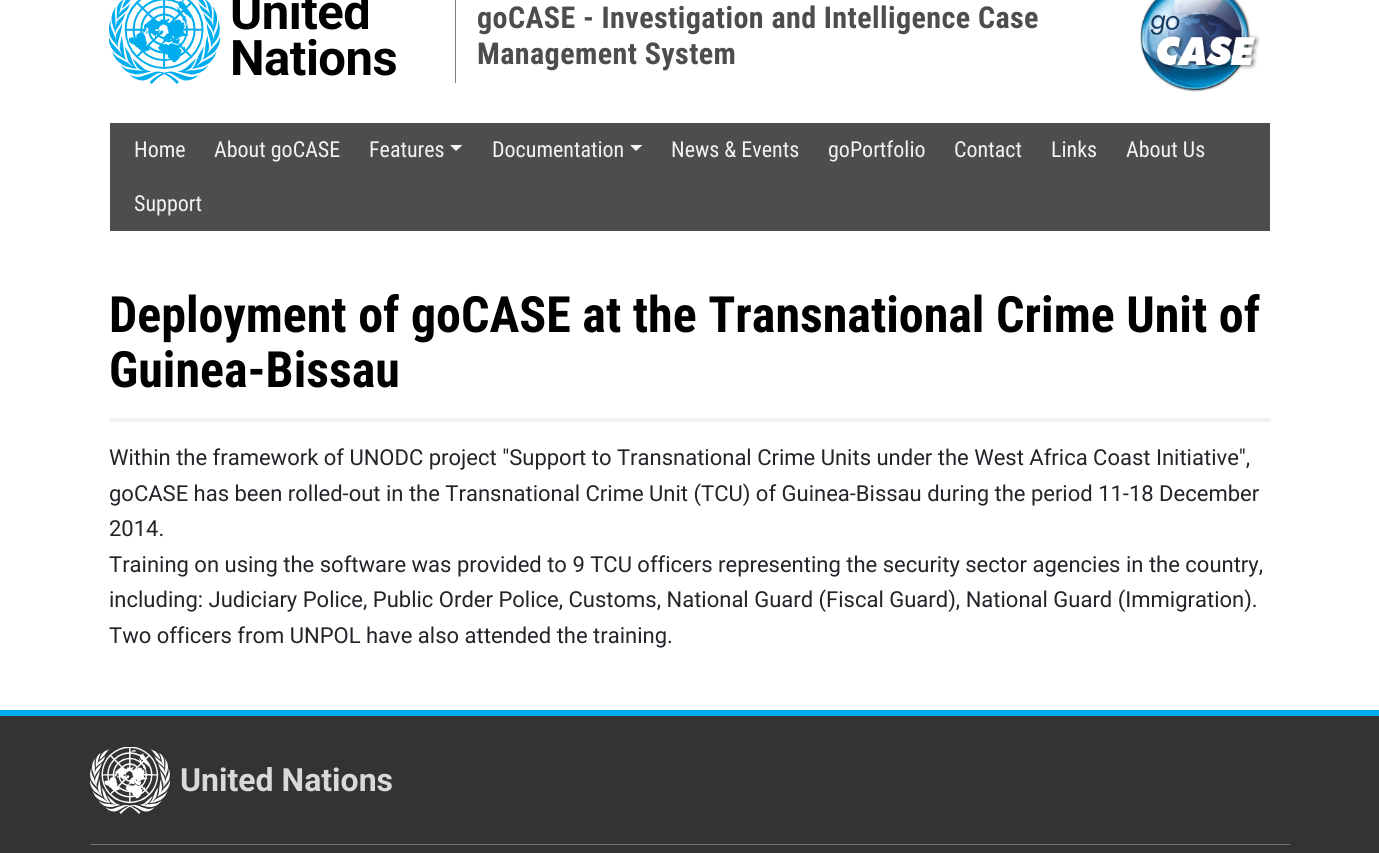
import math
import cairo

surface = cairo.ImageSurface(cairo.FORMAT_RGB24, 1379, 853)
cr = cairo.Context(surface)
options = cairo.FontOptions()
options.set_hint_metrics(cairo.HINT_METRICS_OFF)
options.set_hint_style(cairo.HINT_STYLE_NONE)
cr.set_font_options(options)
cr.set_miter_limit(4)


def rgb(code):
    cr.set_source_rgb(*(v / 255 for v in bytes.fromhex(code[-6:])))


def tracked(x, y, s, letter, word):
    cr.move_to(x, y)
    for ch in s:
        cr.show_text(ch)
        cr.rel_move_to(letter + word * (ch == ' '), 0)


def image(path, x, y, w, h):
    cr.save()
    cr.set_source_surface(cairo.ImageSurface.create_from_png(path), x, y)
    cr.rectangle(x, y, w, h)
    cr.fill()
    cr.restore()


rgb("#ffffff")
cr.paint()
image("img/1.png", 109, 0, 111, 84)
rgb("#808080")
cr.rectangle(455, 0, 1, 83)
cr.fill()
image("img/2.png", 1139, 0, 121, 92)
rgb("#4d4d4d")
cr.rectangle(110, 123, 1160, 108)
cr.fill()
rgb("#f2f2f2")
cr.new_path()
cr.move_to(450, 145)
cr.line_to(462.5, 145)
cr.line_to(456, 151)
cr.close_path()
cr.fill()
cr.new_path()
cr.move_to(630, 145)
cr.line_to(642.5, 145)
cr.line_to(636, 151)
cr.close_path()
cr.fill()
for x, y, w, h, color in [
    (109, 418, 1162, 4, "#f2f2f2"),
    (0, 716, 1379, 137, "#333333"),
    (0, 710, 1379, 6, "#00adef"),
    (90, 844, 1200, 1, "#727272"),
]:
    rgb(color)
    cr.rectangle(x, y, w, h)
    cr.fill()
image("img/3.png", 90, 747, 80, 67)
cr.select_font_face("Roboto", cairo.FONT_SLANT_NORMAL, cairo.FONT_WEIGHT_BOLD)
cr.set_font_size(49)
rgb("#000000")
tracked(230, 29, "United", -0.5, 0)
tracked(230, 75, "Nations", -0.5, 0)
cr.select_font_face("Roboto Condensed", cairo.FONT_SLANT_NORMAL, cairo.FONT_WEIGHT_BOLD)
cr.set_font_size(30.1)
rgb("#4d4d4d")
tracked(477, 28, "goCASE - Investigation and Intelligence Case", 0.4, 0)
tracked(477, 64, "Management System", 0.4, 0)
cr.select_font_face("Roboto Condensed")
cr.set_font_size(22)
rgb("#f2f2f2")
for x, y, s in [
    (134, 157, "Home"),
    (214, 157, "About goCASE"),
    (369, 157, "Features"),
    (492, 157, "Documentation"),
    (671, 157, "News & Events"),
    (828, 157, "goPortfolio"),
    (954, 157, "Contact"),
    (1051, 157, "Links"),
    (1126, 157, "About Us"),
    (134, 211, "Support"),
]:
    cr.move_to(x, y)
    cr.show_text(s)
cr.select_font_face("Roboto Condensed", cairo.FONT_SLANT_NORMAL, cairo.FONT_WEIGHT_BOLD)
cr.set_font_size(50)
rgb("#000000")
cr.move_to(109, 332)
cr.show_text("Deployment of goCASE at the Transnational Crime Unit of")
cr.move_to(109, 387)
cr.show_text("Guinea-Bissau")
cr.select_font_face("Roboto")
cr.set_font_size(22)
rgb("#212529")
for x, y, s in [
    (109, 465, "Within the framework of UNODC project \"Support to Transnational Crime Units under the West Africa Coast Initiative\","),
    (109, 501, "goCASE has been rolled-out in the Transnational Crime Unit (TCU) of Guinea-Bissau during the period 11-18 December"),
    (109, 536, "2014."),
    (109, 572, "Training on using the software was provided to 9 TCU officers representing the security sector agencies in the country,"),
    (109, 607, "including: Judiciary Police, Public Order Police, Customs, National Guard (Fiscal Guard), National Guard (Immigration)."),
    (109, 643, "Two officers from UNPOL have also attended the training."),
]:
    cr.move_to(x, y)
    cr.show_text(s)
cr.select_font_face("Roboto", cairo.FONT_SLANT_NORMAL, cairo.FONT_WEIGHT_BOLD)
cr.set_font_size(32)
rgb("#d9d9d9")
cr.move_to(180, 791)
cr.show_text("United Nations")
surface.write_to_png("page.png")
